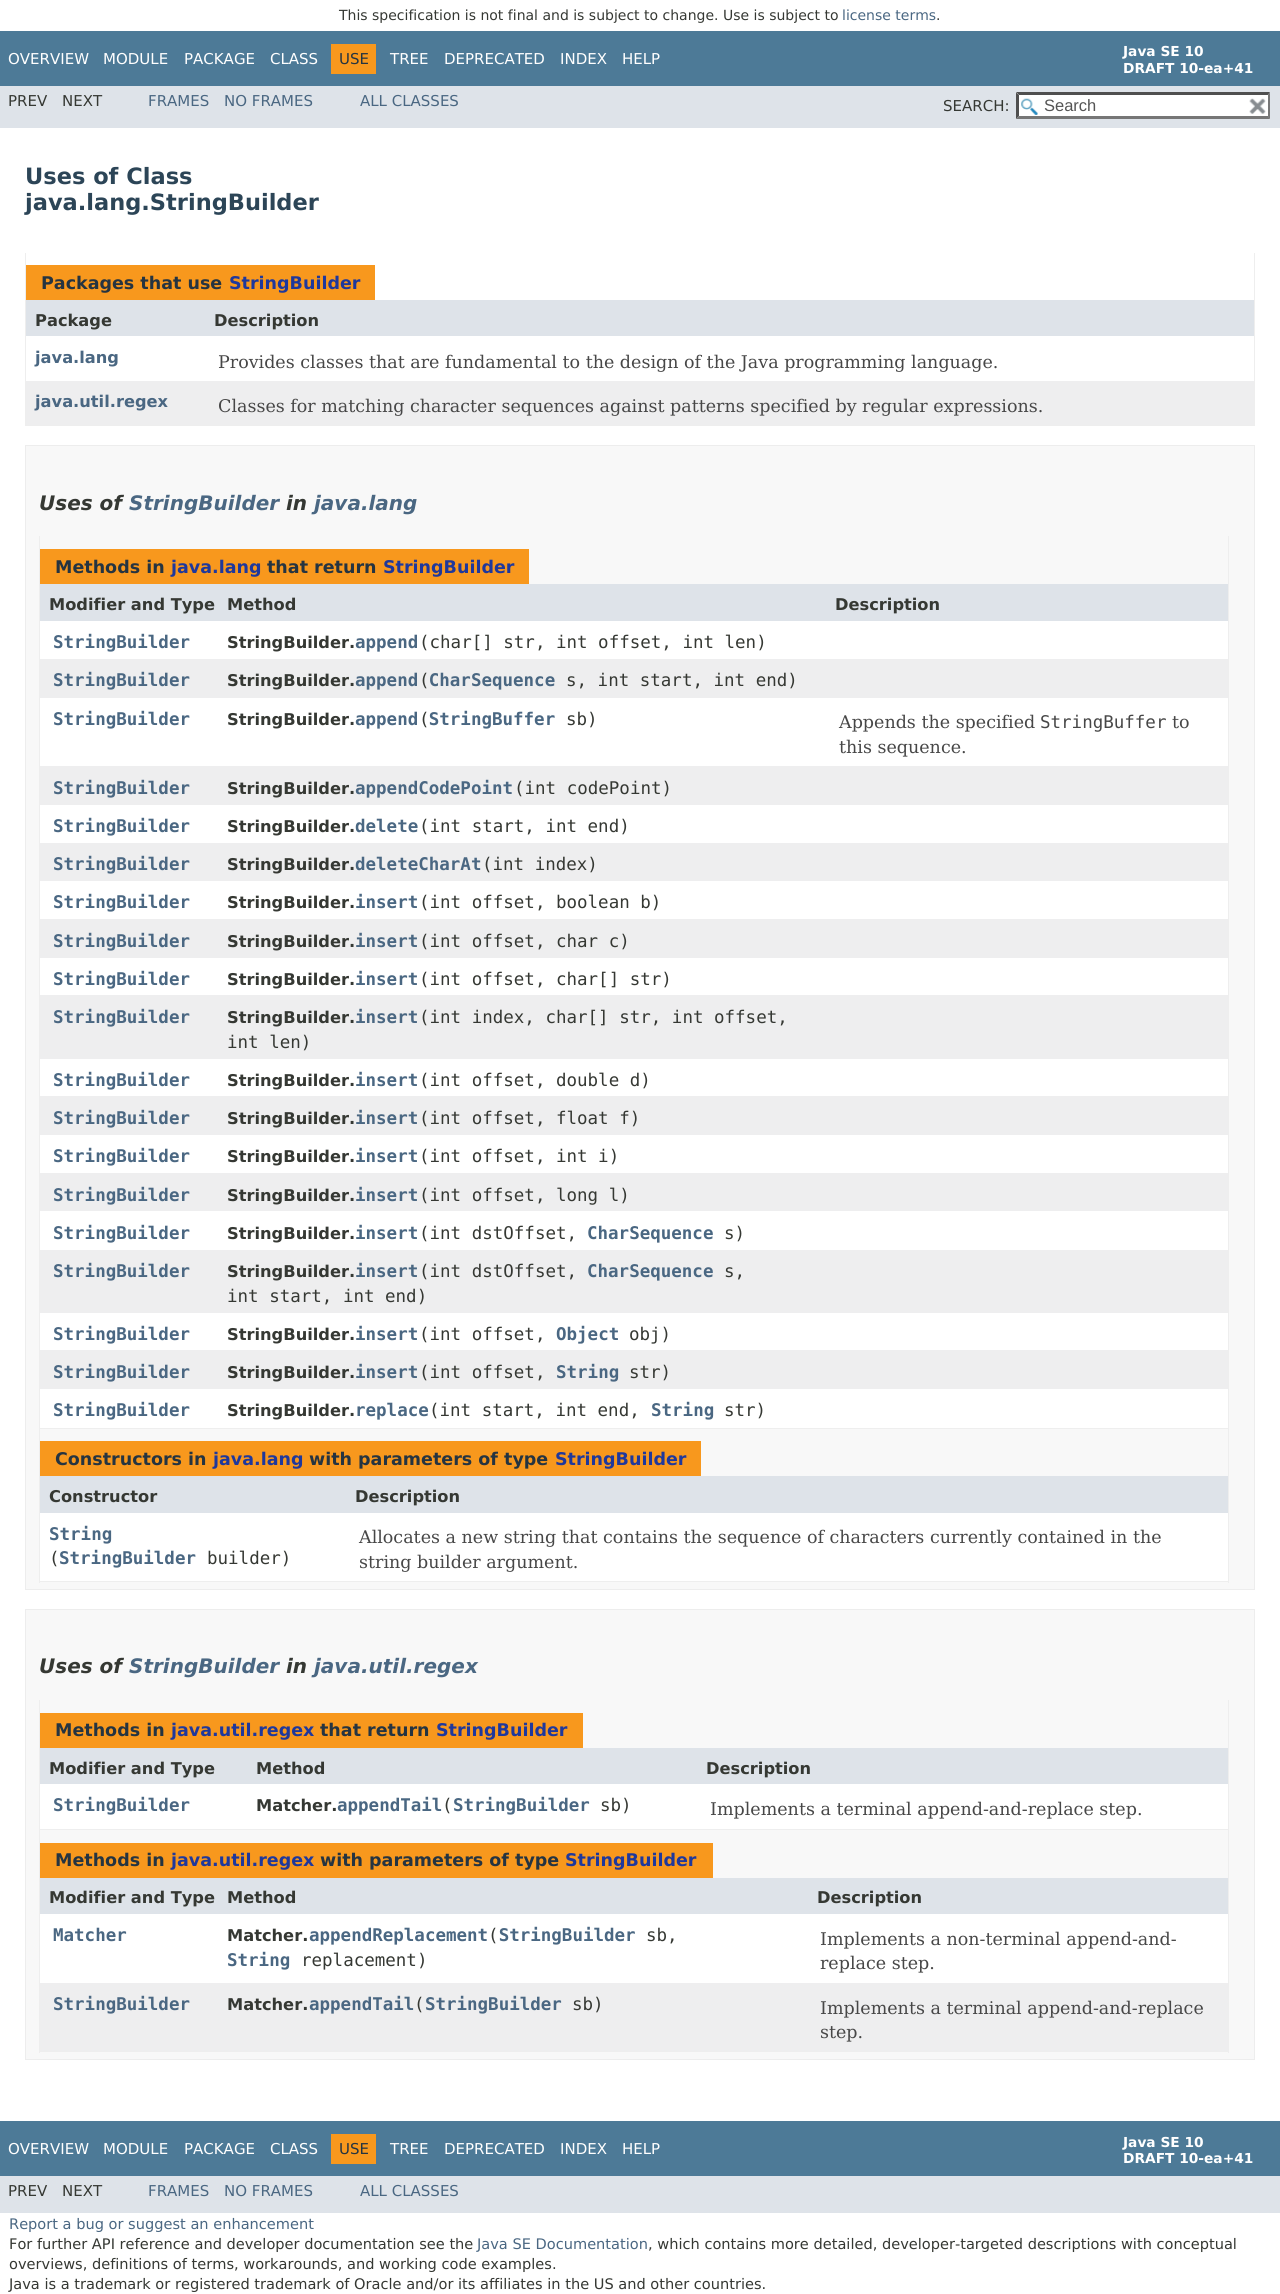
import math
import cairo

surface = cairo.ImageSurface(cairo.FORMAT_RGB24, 1280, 2294)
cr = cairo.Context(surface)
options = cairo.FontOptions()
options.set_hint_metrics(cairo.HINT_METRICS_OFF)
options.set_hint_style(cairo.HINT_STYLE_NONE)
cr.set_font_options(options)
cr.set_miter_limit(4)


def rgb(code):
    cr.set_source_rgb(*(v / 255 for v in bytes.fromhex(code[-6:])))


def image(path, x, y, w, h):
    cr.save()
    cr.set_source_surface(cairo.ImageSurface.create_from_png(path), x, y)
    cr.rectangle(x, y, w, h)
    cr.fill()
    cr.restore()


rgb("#ffffff")
cr.paint()
for x, y, w, h, color in [
    (0, 31, 1280, 55, "#4d7a97"),
    (331, 44, 45, 30, "#f8981d"),
    (0, 86, 1280, 42, "#dee3e9"),
    (1016, 93, 254, 26, "#ffffff"),
]:
    rgb(color)
    cr.rectangle(x, y, w, h)
    cr.fill()
image("img/1.png", 1021, 98, 17, 17)
rgb("#4f4f4f")
cr.new_path()
cr.move_to(1016, 92)
cr.line_to(1270, 92)
cr.line_to(1268, 95)
cr.line_to(1019, 95)
cr.close_path()
cr.fill()
rgb("#767676")
cr.new_path()
cr.move_to(1270, 92.5)
cr.line_to(1270, 119)
cr.line_to(1267.5, 116)
cr.line_to(1267.5, 95)
cr.close_path()
cr.fill()
cr.new_path()
cr.move_to(1270, 119)
cr.line_to(1016, 119)
cr.line_to(1019, 116)
cr.line_to(1268, 116)
cr.close_path()
cr.fill()
rgb("#4f4f4f")
cr.new_path()
cr.move_to(1016, 119)
cr.line_to(1016, 92.5)
cr.line_to(1019, 95)
cr.line_to(1019, 116)
cr.close_path()
cr.fill()
rgb("#ffffff")
cr.rectangle(1267, 95, 1, 21)
cr.fill()
image("img/2.png", 1249, 98, 17, 16)
for x, y, w, h, color in [
    (1254, 253, 1, 173, "#eeeeee"),
    (25, 425, 1230, 1, "#eeeeee"),
    (25, 253, 1, 173, "#eeeeee"),
    (26, 265, 349, 35, "#f8981d"),
    (26, 300, 1228, 36, "#dee3e9"),
    (26, 381, 1228, 44, "#eeeeef"),
]:
    rgb(color)
    cr.rectangle(x, y, w, h)
    cr.fill()
rgb("#f8f8f8")
cr.rectangle(25.5, 445.5, 1229, 1144)
cr.fill_preserve()
rgb("#ededed")
cr.set_line_width(1)
cr.stroke()
for x, y, w, h, color in [
    (1228, 536, 1, 1047, "#eeeeee"),
    (39, 1428, 1190, 1, "#eeeeee"),
    (39, 536, 1, 893, "#eeeeee"),
    (40, 549, 489, 35, "#f8981d"),
    (40, 584, 1188, 37, "#dee3e9"),
    (40, 621, 1188, 38, "#ffffff"),
    (40, 659, 1188, 39, "#eeeeef"),
    (40, 698, 1188, 68, "#ffffff"),
    (40, 766, 1188, 39, "#eeeeef"),
    (40, 805, 1188, 38, "#ffffff"),
    (40, 843, 1188, 38, "#eeeeef"),
    (40, 881, 1188, 38, "#ffffff"),
    (40, 919, 1188, 39, "#eeeeef"),
    (40, 958, 1188, 37, "#ffffff"),
    (40, 995, 1188, 64, "#eeeeef"),
    (40, 1059, 1188, 37, "#ffffff"),
    (40, 1096, 1188, 39, "#eeeeef"),
    (40, 1135, 1188, 38, "#ffffff"),
    (40, 1173, 1188, 38, "#eeeeef"),
    (40, 1211, 1188, 39, "#ffffff"),
    (40, 1250, 1188, 63, "#eeeeef"),
    (40, 1313, 1188, 37, "#ffffff"),
    (40, 1350, 1188, 39, "#eeeeef"),
    (40, 1389, 1188, 39, "#ffffff"),
    (39, 1581, 1190, 1, "#eeeeee"),
    (39, 1429, 1, 154, "#eeeeee"),
    (40, 1441, 661, 35, "#f8981d"),
    (40, 1476, 1188, 37, "#dee3e9"),
    (40, 1513, 1188, 68, "#ffffff"),
]:
    rgb(color)
    cr.rectangle(x, y, w, h)
    cr.fill()
rgb("#f8f8f8")
cr.rectangle(25.5, 1609.5, 1229, 450)
cr.fill_preserve()
rgb("#ededed")
cr.stroke()
for x, y, w, h, color in [
    (1228, 1700, 1, 353, "#eeeeee"),
    (39, 1829, 1190, 1, "#eeeeee"),
    (39, 1700, 1, 130, "#eeeeee"),
    (40, 1713, 543, 35, "#f8981d"),
    (40, 1748, 1188, 36, "#dee3e9"),
    (40, 1784, 1188, 45, "#ffffff"),
    (39, 2051, 1190, 1, "#eeeeee"),
    (39, 1830, 1, 223, "#eeeeee"),
    (40, 1843, 673, 35, "#f8981d"),
    (40, 1878, 1188, 36, "#dee3e9"),
    (40, 1914, 1188, 69, "#ffffff"),
    (40, 1983, 1188, 68, "#eeeeef"),
    (0, 2121, 1280, 55, "#4d7a97"),
    (331, 2134, 45, 30, "#f8981d"),
    (0, 2176, 1280, 37, "#dee3e9"),
]:
    rgb(color)
    cr.rectangle(x, y, w, h)
    cr.fill()
cr.select_font_face("DejaVu Sans")
cr.set_font_size(14)
rgb("#353833")
cr.move_to(339, 20)
cr.show_text("This specification is not final and is subject to change. Use is subject to")
rgb("#4a6782")
cr.move_to(842, 20)
cr.show_text("license terms")
rgb("#353833")
cr.move_to(936, 20)
cr.show_text(".")
cr.set_font_size(15)
rgb("#ffffff")
for x, y, s in [
    (8, 64, "OVERVIEW"),
    (103, 64, "MODULE"),
    (184, 64, "PACKAGE"),
    (270, 64, "CLASS"),
]:
    cr.move_to(x, y)
    cr.show_text(s)
rgb("#253441")
cr.move_to(339, 64)
cr.show_text("USE")
rgb("#ffffff")
for x, y, s in [
    (390, 64, "TREE"),
    (444, 64, "DEPRECATED"),
    (560, 64, "INDEX"),
    (622, 64, "HELP"),
]:
    cr.move_to(x, y)
    cr.show_text(s)
cr.select_font_face("DejaVu Sans", cairo.FONT_SLANT_NORMAL, cairo.FONT_WEIGHT_BOLD)
cr.set_font_size(13.75)
cr.move_to(1123, 56)
cr.show_text("Java SE 10")
cr.move_to(1123, 73)
cr.show_text("DRAFT 10-ea+41")
cr.select_font_face("DejaVu Sans")
cr.set_font_size(15)
rgb("#353833")
cr.move_to(8, 106)
cr.show_text("PREV")
cr.move_to(62, 106)
cr.show_text("NEXT")
rgb("#4a6782")
for x, y, s in [
    (148, 106, "FRAMES"),
    (224, 106, "NO FRAMES"),
    (360, 106, "ALL CLASSES"),
]:
    cr.move_to(x, y)
    cr.show_text(s)
rgb("#353833")
cr.move_to(943, 111)
cr.show_text("SEARCH:")
cr.select_font_face("Liberation Sans")
cr.set_font_size(16.5)
rgb("#545454")
cr.move_to(1044, 111)
cr.show_text("Search")
cr.select_font_face("DejaVu Sans", cairo.FONT_SLANT_NORMAL, cairo.FONT_WEIGHT_BOLD)
cr.set_font_size(22.5)
rgb("#2c4557")
cr.move_to(25, 184)
cr.show_text("Uses of Class")
cr.move_to(25, 210)
cr.show_text("java.lang.StringBuilder")
cr.set_font_size(17.5)
rgb("#253441")
cr.move_to(41, 289)
cr.show_text("Packages that use")
rgb("#1f389c")
cr.move_to(229, 289)
cr.show_text("StringBuilder")
cr.set_font_size(16.25)
rgb("#353833")
cr.move_to(35, 326)
cr.show_text("Package")
cr.move_to(214, 326)
cr.show_text("Description")
rgb("#4a6782")
cr.move_to(35, 363)
cr.show_text("java.lang")
cr.select_font_face("DejaVu Serif")
cr.set_font_size(17.5)
rgb("#474747")
cr.move_to(218, 368)
cr.show_text("Provides classes that are fundamental to the design of the Java programming language.")
cr.select_font_face("DejaVu Sans", cairo.FONT_SLANT_NORMAL, cairo.FONT_WEIGHT_BOLD)
cr.set_font_size(16.25)
rgb("#4a6782")
cr.move_to(35, 407)
cr.show_text("java.util.regex")
cr.select_font_face("DejaVu Serif")
cr.set_font_size(17.5)
rgb("#474747")
cr.move_to(218, 412)
cr.show_text("Classes for matching character sequences against patterns specified by regular expressions.")
cr.select_font_face("DejaVu Sans", cairo.FONT_SLANT_ITALIC, cairo.FONT_WEIGHT_BOLD)
cr.set_font_size(20)
rgb("#353833")
cr.move_to(39, 510)
cr.show_text("Uses of")
rgb("#4a6782")
cr.move_to(129, 510)
cr.show_text("StringBuilder")
rgb("#353833")
cr.move_to(286, 510)
cr.show_text("in")
rgb("#4a6782")
cr.move_to(314, 510)
cr.show_text("java.lang")
cr.select_font_face("DejaVu Sans", cairo.FONT_SLANT_NORMAL, cairo.FONT_WEIGHT_BOLD)
cr.set_font_size(17.5)
rgb("#253441")
cr.move_to(55, 573)
cr.show_text("Methods in")
rgb("#1f389c")
cr.move_to(171, 573)
cr.show_text("java.lang")
rgb("#253441")
cr.move_to(267, 573)
cr.show_text("that return")
rgb("#1f389c")
cr.move_to(383, 573)
cr.show_text("StringBuilder")
cr.set_font_size(16.25)
rgb("#353833")
for x, y, s in [
    (49, 610, "Modifier and Type"),
    (227, 610, "Method"),
    (835, 610, "Description"),
]:
    cr.move_to(x, y)
    cr.show_text(s)
cr.select_font_face("DejaVu Sans Mono", cairo.FONT_SLANT_NORMAL, cairo.FONT_WEIGHT_BOLD)
cr.set_font_size(17.5)
rgb("#4a6782")
cr.move_to(53, 648)
cr.show_text("StringBuilder")
cr.select_font_face("DejaVu Sans", cairo.FONT_SLANT_NORMAL, cairo.FONT_WEIGHT_BOLD)
cr.set_font_size(16.25)
rgb("#353833")
cr.move_to(227, 648)
cr.show_text("StringBuilder.")
cr.select_font_face("DejaVu Sans Mono", cairo.FONT_SLANT_NORMAL, cairo.FONT_WEIGHT_BOLD)
cr.set_font_size(17.5)
rgb("#4a6782")
cr.move_to(355, 648)
cr.show_text("append")
cr.select_font_face("DejaVu Sans Mono")
rgb("#353833")
cr.move_to(419, 648)
cr.show_text("(char[] str, int offset, int len)")
cr.select_font_face("DejaVu Sans Mono", cairo.FONT_SLANT_NORMAL, cairo.FONT_WEIGHT_BOLD)
rgb("#4a6782")
cr.move_to(53, 686)
cr.show_text("StringBuilder")
cr.move_to(355, 686)
cr.show_text("append CharSequence")
cr.select_font_face("DejaVu Sans", cairo.FONT_SLANT_NORMAL, cairo.FONT_WEIGHT_BOLD)
cr.set_font_size(16.25)
rgb("#353833")
cr.move_to(227, 686)
cr.show_text("StringBuilder.")
cr.select_font_face("DejaVu Sans Mono")
cr.set_font_size(17.5)
cr.move_to(419, 686)
cr.show_text("(")
cr.move_to(566, 686)
cr.show_text("s, int start, int end)")
cr.select_font_face("DejaVu Sans Mono", cairo.FONT_SLANT_NORMAL, cairo.FONT_WEIGHT_BOLD)
rgb("#4a6782")
cr.move_to(53, 725)
cr.show_text("StringBuilder")
cr.move_to(355, 725)
cr.show_text("append StringBuffer")
cr.select_font_face("DejaVu Sans", cairo.FONT_SLANT_NORMAL, cairo.FONT_WEIGHT_BOLD)
cr.set_font_size(16.25)
rgb("#353833")
cr.move_to(227, 725)
cr.show_text("StringBuilder.")
cr.select_font_face("DejaVu Sans Mono")
cr.set_font_size(17.5)
cr.move_to(419, 725)
cr.show_text("(")
cr.move_to(566, 725)
cr.show_text("sb)")
cr.select_font_face("DejaVu Serif")
rgb("#474747")
cr.move_to(839, 728)
cr.show_text("Appends the specified")
cr.select_font_face("DejaVu Sans Mono")
cr.move_to(1040, 728)
cr.show_text("StringBuffer")
cr.select_font_face("DejaVu Serif")
cr.move_to(1172, 728)
cr.show_text("to")
cr.move_to(839, 753)
cr.show_text("this sequence.")
cr.select_font_face("DejaVu Sans Mono", cairo.FONT_SLANT_NORMAL, cairo.FONT_WEIGHT_BOLD)
rgb("#4a6782")
cr.move_to(53, 794)
cr.show_text("StringBuilder")
cr.select_font_face("DejaVu Sans", cairo.FONT_SLANT_NORMAL, cairo.FONT_WEIGHT_BOLD)
cr.set_font_size(16.25)
rgb("#353833")
cr.move_to(227, 794)
cr.show_text("StringBuilder.")
cr.select_font_face("DejaVu Sans Mono", cairo.FONT_SLANT_NORMAL, cairo.FONT_WEIGHT_BOLD)
cr.set_font_size(17.5)
rgb("#4a6782")
cr.move_to(355, 794)
cr.show_text("appendCodePoint")
cr.select_font_face("DejaVu Sans Mono")
rgb("#353833")
cr.move_to(514, 794)
cr.show_text("(int codePoint)")
cr.select_font_face("DejaVu Sans Mono", cairo.FONT_SLANT_NORMAL, cairo.FONT_WEIGHT_BOLD)
rgb("#4a6782")
cr.move_to(53, 832)
cr.show_text("StringBuilder")
cr.select_font_face("DejaVu Sans", cairo.FONT_SLANT_NORMAL, cairo.FONT_WEIGHT_BOLD)
cr.set_font_size(16.25)
rgb("#353833")
cr.move_to(227, 832)
cr.show_text("StringBuilder.")
cr.select_font_face("DejaVu Sans Mono", cairo.FONT_SLANT_NORMAL, cairo.FONT_WEIGHT_BOLD)
cr.set_font_size(17.5)
rgb("#4a6782")
cr.move_to(355, 832)
cr.show_text("delete")
cr.select_font_face("DejaVu Sans Mono")
rgb("#353833")
cr.move_to(419, 832)
cr.show_text("(int start, int end)")
cr.select_font_face("DejaVu Sans Mono", cairo.FONT_SLANT_NORMAL, cairo.FONT_WEIGHT_BOLD)
rgb("#4a6782")
cr.move_to(53, 870)
cr.show_text("StringBuilder")
cr.select_font_face("DejaVu Sans", cairo.FONT_SLANT_NORMAL, cairo.FONT_WEIGHT_BOLD)
cr.set_font_size(16.25)
rgb("#353833")
cr.move_to(227, 870)
cr.show_text("StringBuilder.")
cr.select_font_face("DejaVu Sans Mono", cairo.FONT_SLANT_NORMAL, cairo.FONT_WEIGHT_BOLD)
cr.set_font_size(17.5)
rgb("#4a6782")
cr.move_to(355, 870)
cr.show_text("deleteCharAt")
cr.select_font_face("DejaVu Sans Mono")
rgb("#353833")
cr.move_to(482, 870)
cr.show_text("(int index)")
cr.select_font_face("DejaVu Sans Mono", cairo.FONT_SLANT_NORMAL, cairo.FONT_WEIGHT_BOLD)
rgb("#4a6782")
cr.move_to(53, 908)
cr.show_text("StringBuilder")
cr.select_font_face("DejaVu Sans", cairo.FONT_SLANT_NORMAL, cairo.FONT_WEIGHT_BOLD)
cr.set_font_size(16.25)
rgb("#353833")
cr.move_to(227, 908)
cr.show_text("StringBuilder.")
cr.select_font_face("DejaVu Sans Mono", cairo.FONT_SLANT_NORMAL, cairo.FONT_WEIGHT_BOLD)
cr.set_font_size(17.5)
rgb("#4a6782")
cr.move_to(355, 908)
cr.show_text("insert")
cr.select_font_face("DejaVu Sans Mono")
rgb("#353833")
cr.move_to(419, 908)
cr.show_text("(int offset, boolean b)")
cr.select_font_face("DejaVu Sans Mono", cairo.FONT_SLANT_NORMAL, cairo.FONT_WEIGHT_BOLD)
rgb("#4a6782")
cr.move_to(53, 947)
cr.show_text("StringBuilder")
cr.select_font_face("DejaVu Sans", cairo.FONT_SLANT_NORMAL, cairo.FONT_WEIGHT_BOLD)
cr.set_font_size(16.25)
rgb("#353833")
cr.move_to(227, 947)
cr.show_text("StringBuilder.")
cr.select_font_face("DejaVu Sans Mono", cairo.FONT_SLANT_NORMAL, cairo.FONT_WEIGHT_BOLD)
cr.set_font_size(17.5)
rgb("#4a6782")
cr.move_to(355, 947)
cr.show_text("insert")
cr.select_font_face("DejaVu Sans Mono")
rgb("#353833")
cr.move_to(419, 947)
cr.show_text("(int offset, char c)")
cr.select_font_face("DejaVu Sans Mono", cairo.FONT_SLANT_NORMAL, cairo.FONT_WEIGHT_BOLD)
rgb("#4a6782")
cr.move_to(53, 985)
cr.show_text("StringBuilder")
cr.select_font_face("DejaVu Sans", cairo.FONT_SLANT_NORMAL, cairo.FONT_WEIGHT_BOLD)
cr.set_font_size(16.25)
rgb("#353833")
cr.move_to(227, 985)
cr.show_text("StringBuilder.")
cr.select_font_face("DejaVu Sans Mono", cairo.FONT_SLANT_NORMAL, cairo.FONT_WEIGHT_BOLD)
cr.set_font_size(17.5)
rgb("#4a6782")
cr.move_to(355, 985)
cr.show_text("insert")
cr.select_font_face("DejaVu Sans Mono")
rgb("#353833")
cr.move_to(419, 985)
cr.show_text("(int offset, char[] str)")
cr.select_font_face("DejaVu Sans Mono", cairo.FONT_SLANT_NORMAL, cairo.FONT_WEIGHT_BOLD)
rgb("#4a6782")
cr.move_to(53, 1023)
cr.show_text("StringBuilder")
cr.select_font_face("DejaVu Sans", cairo.FONT_SLANT_NORMAL, cairo.FONT_WEIGHT_BOLD)
cr.set_font_size(16.25)
rgb("#353833")
cr.move_to(227, 1023)
cr.show_text("StringBuilder.")
cr.select_font_face("DejaVu Sans Mono", cairo.FONT_SLANT_NORMAL, cairo.FONT_WEIGHT_BOLD)
cr.set_font_size(17.5)
rgb("#4a6782")
cr.move_to(355, 1023)
cr.show_text("insert")
cr.select_font_face("DejaVu Sans Mono")
rgb("#353833")
cr.move_to(419, 1023)
cr.show_text("(int index, char[] str, int offset,")
cr.move_to(227, 1048)
cr.show_text("int len)")
cr.select_font_face("DejaVu Sans Mono", cairo.FONT_SLANT_NORMAL, cairo.FONT_WEIGHT_BOLD)
rgb("#4a6782")
cr.move_to(53, 1086)
cr.show_text("StringBuilder")
cr.select_font_face("DejaVu Sans", cairo.FONT_SLANT_NORMAL, cairo.FONT_WEIGHT_BOLD)
cr.set_font_size(16.25)
rgb("#353833")
cr.move_to(227, 1086)
cr.show_text("StringBuilder.")
cr.select_font_face("DejaVu Sans Mono", cairo.FONT_SLANT_NORMAL, cairo.FONT_WEIGHT_BOLD)
cr.set_font_size(17.5)
rgb("#4a6782")
cr.move_to(355, 1086)
cr.show_text("insert")
cr.select_font_face("DejaVu Sans Mono")
rgb("#353833")
cr.move_to(419, 1086)
cr.show_text("(int offset, double d)")
cr.select_font_face("DejaVu Sans Mono", cairo.FONT_SLANT_NORMAL, cairo.FONT_WEIGHT_BOLD)
rgb("#4a6782")
cr.move_to(53, 1124)
cr.show_text("StringBuilder")
cr.select_font_face("DejaVu Sans", cairo.FONT_SLANT_NORMAL, cairo.FONT_WEIGHT_BOLD)
cr.set_font_size(16.25)
rgb("#353833")
cr.move_to(227, 1124)
cr.show_text("StringBuilder.")
cr.select_font_face("DejaVu Sans Mono", cairo.FONT_SLANT_NORMAL, cairo.FONT_WEIGHT_BOLD)
cr.set_font_size(17.5)
rgb("#4a6782")
cr.move_to(355, 1124)
cr.show_text("insert")
cr.select_font_face("DejaVu Sans Mono")
rgb("#353833")
cr.move_to(419, 1124)
cr.show_text("(int offset, float f)")
cr.select_font_face("DejaVu Sans Mono", cairo.FONT_SLANT_NORMAL, cairo.FONT_WEIGHT_BOLD)
rgb("#4a6782")
cr.move_to(53, 1162)
cr.show_text("StringBuilder")
cr.select_font_face("DejaVu Sans", cairo.FONT_SLANT_NORMAL, cairo.FONT_WEIGHT_BOLD)
cr.set_font_size(16.25)
rgb("#353833")
cr.move_to(227, 1162)
cr.show_text("StringBuilder.")
cr.select_font_face("DejaVu Sans Mono", cairo.FONT_SLANT_NORMAL, cairo.FONT_WEIGHT_BOLD)
cr.set_font_size(17.5)
rgb("#4a6782")
cr.move_to(355, 1162)
cr.show_text("insert")
cr.select_font_face("DejaVu Sans Mono")
rgb("#353833")
cr.move_to(419, 1162)
cr.show_text("(int offset, int i)")
cr.select_font_face("DejaVu Sans Mono", cairo.FONT_SLANT_NORMAL, cairo.FONT_WEIGHT_BOLD)
rgb("#4a6782")
cr.move_to(53, 1201)
cr.show_text("StringBuilder")
cr.select_font_face("DejaVu Sans", cairo.FONT_SLANT_NORMAL, cairo.FONT_WEIGHT_BOLD)
cr.set_font_size(16.25)
rgb("#353833")
cr.move_to(227, 1201)
cr.show_text("StringBuilder.")
cr.select_font_face("DejaVu Sans Mono", cairo.FONT_SLANT_NORMAL, cairo.FONT_WEIGHT_BOLD)
cr.set_font_size(17.5)
rgb("#4a6782")
cr.move_to(355, 1201)
cr.show_text("insert")
cr.select_font_face("DejaVu Sans Mono")
rgb("#353833")
cr.move_to(419, 1201)
cr.show_text("(int offset, long l)")
cr.select_font_face("DejaVu Sans Mono", cairo.FONT_SLANT_NORMAL, cairo.FONT_WEIGHT_BOLD)
rgb("#4a6782")
cr.move_to(53, 1239)
cr.show_text("StringBuilder")
cr.select_font_face("DejaVu Sans", cairo.FONT_SLANT_NORMAL, cairo.FONT_WEIGHT_BOLD)
cr.set_font_size(16.25)
rgb("#353833")
cr.move_to(227, 1239)
cr.show_text("StringBuilder.")
cr.select_font_face("DejaVu Sans Mono", cairo.FONT_SLANT_NORMAL, cairo.FONT_WEIGHT_BOLD)
cr.set_font_size(17.5)
rgb("#4a6782")
cr.move_to(355, 1239)
cr.show_text("insert")
cr.select_font_face("DejaVu Sans Mono")
rgb("#353833")
cr.move_to(419, 1239)
cr.show_text("(int dstOffset,")
cr.select_font_face("DejaVu Sans Mono", cairo.FONT_SLANT_NORMAL, cairo.FONT_WEIGHT_BOLD)
rgb("#4a6782")
cr.move_to(587, 1239)
cr.show_text("CharSequence")
cr.select_font_face("DejaVu Sans Mono")
rgb("#353833")
cr.move_to(724, 1239)
cr.show_text("s)")
cr.select_font_face("DejaVu Sans Mono", cairo.FONT_SLANT_NORMAL, cairo.FONT_WEIGHT_BOLD)
rgb("#4a6782")
cr.move_to(53, 1277)
cr.show_text("StringBuilder")
cr.select_font_face("DejaVu Sans", cairo.FONT_SLANT_NORMAL, cairo.FONT_WEIGHT_BOLD)
cr.set_font_size(16.25)
rgb("#353833")
cr.move_to(227, 1277)
cr.show_text("StringBuilder.")
cr.select_font_face("DejaVu Sans Mono", cairo.FONT_SLANT_NORMAL, cairo.FONT_WEIGHT_BOLD)
cr.set_font_size(17.5)
rgb("#4a6782")
cr.move_to(355, 1277)
cr.show_text("insert")
cr.select_font_face("DejaVu Sans Mono")
rgb("#353833")
cr.move_to(419, 1277)
cr.show_text("(int dstOffset,")
cr.select_font_face("DejaVu Sans Mono", cairo.FONT_SLANT_NORMAL, cairo.FONT_WEIGHT_BOLD)
rgb("#4a6782")
cr.move_to(587, 1277)
cr.show_text("CharSequence")
cr.select_font_face("DejaVu Sans Mono")
rgb("#353833")
cr.move_to(724, 1277)
cr.show_text("s,")
cr.move_to(227, 1302)
cr.show_text("int start, int end)")
cr.select_font_face("DejaVu Sans Mono", cairo.FONT_SLANT_NORMAL, cairo.FONT_WEIGHT_BOLD)
rgb("#4a6782")
cr.move_to(53, 1340)
cr.show_text("StringBuilder")
cr.select_font_face("DejaVu Sans", cairo.FONT_SLANT_NORMAL, cairo.FONT_WEIGHT_BOLD)
cr.set_font_size(16.25)
rgb("#353833")
cr.move_to(227, 1340)
cr.show_text("StringBuilder.")
cr.select_font_face("DejaVu Sans Mono", cairo.FONT_SLANT_NORMAL, cairo.FONT_WEIGHT_BOLD)
cr.set_font_size(17.5)
rgb("#4a6782")
cr.move_to(355, 1340)
cr.show_text("insert")
cr.select_font_face("DejaVu Sans Mono")
rgb("#353833")
cr.move_to(419, 1340)
cr.show_text("(int offset,")
cr.select_font_face("DejaVu Sans Mono", cairo.FONT_SLANT_NORMAL, cairo.FONT_WEIGHT_BOLD)
rgb("#4a6782")
cr.move_to(556, 1340)
cr.show_text("Object")
cr.select_font_face("DejaVu Sans Mono")
rgb("#353833")
cr.move_to(629, 1340)
cr.show_text("obj)")
cr.select_font_face("DejaVu Sans Mono", cairo.FONT_SLANT_NORMAL, cairo.FONT_WEIGHT_BOLD)
rgb("#4a6782")
cr.move_to(53, 1378)
cr.show_text("StringBuilder")
cr.select_font_face("DejaVu Sans", cairo.FONT_SLANT_NORMAL, cairo.FONT_WEIGHT_BOLD)
cr.set_font_size(16.25)
rgb("#353833")
cr.move_to(227, 1378)
cr.show_text("StringBuilder.")
cr.select_font_face("DejaVu Sans Mono", cairo.FONT_SLANT_NORMAL, cairo.FONT_WEIGHT_BOLD)
cr.set_font_size(17.5)
rgb("#4a6782")
cr.move_to(355, 1378)
cr.show_text("insert")
cr.select_font_face("DejaVu Sans Mono")
rgb("#353833")
cr.move_to(419, 1378)
cr.show_text("(int offset,")
cr.select_font_face("DejaVu Sans Mono", cairo.FONT_SLANT_NORMAL, cairo.FONT_WEIGHT_BOLD)
rgb("#4a6782")
cr.move_to(556, 1378)
cr.show_text("String")
cr.select_font_face("DejaVu Sans Mono")
rgb("#353833")
cr.move_to(629, 1378)
cr.show_text("str)")
cr.select_font_face("DejaVu Sans Mono", cairo.FONT_SLANT_NORMAL, cairo.FONT_WEIGHT_BOLD)
rgb("#4a6782")
cr.move_to(53, 1416)
cr.show_text("StringBuilder")
cr.select_font_face("DejaVu Sans", cairo.FONT_SLANT_NORMAL, cairo.FONT_WEIGHT_BOLD)
cr.set_font_size(16.25)
rgb("#353833")
cr.move_to(227, 1416)
cr.show_text("StringBuilder.")
cr.select_font_face("DejaVu Sans Mono", cairo.FONT_SLANT_NORMAL, cairo.FONT_WEIGHT_BOLD)
cr.set_font_size(17.5)
rgb("#4a6782")
cr.move_to(355, 1416)
cr.show_text("replace")
cr.select_font_face("DejaVu Sans Mono")
rgb("#353833")
cr.move_to(429, 1416)
cr.show_text("(int start, int end,")
cr.select_font_face("DejaVu Sans Mono", cairo.FONT_SLANT_NORMAL, cairo.FONT_WEIGHT_BOLD)
rgb("#4a6782")
cr.move_to(651, 1416)
cr.show_text("String")
cr.select_font_face("DejaVu Sans Mono")
rgb("#353833")
cr.move_to(724, 1416)
cr.show_text("str)")
cr.select_font_face("DejaVu Sans", cairo.FONT_SLANT_NORMAL, cairo.FONT_WEIGHT_BOLD)
rgb("#253441")
cr.move_to(55, 1465)
cr.show_text("Constructors in")
rgb("#1f389c")
cr.move_to(213, 1465)
cr.show_text("java.lang")
rgb("#253441")
cr.move_to(309, 1465)
cr.show_text("with parameters of type")
rgb("#1f389c")
cr.move_to(555, 1465)
cr.show_text("StringBuilder")
cr.set_font_size(16.25)
rgb("#353833")
cr.move_to(49, 1502)
cr.show_text("Constructor")
cr.move_to(355, 1502)
cr.show_text("Description")
cr.select_font_face("DejaVu Sans Mono", cairo.FONT_SLANT_NORMAL, cairo.FONT_WEIGHT_BOLD)
cr.set_font_size(17.5)
rgb("#4a6782")
cr.move_to(49, 1540)
cr.show_text("String")
cr.select_font_face("DejaVu Sans Mono")
rgb("#353833")
cr.move_to(49, 1564)
cr.show_text("(")
cr.select_font_face("DejaVu Sans Mono", cairo.FONT_SLANT_NORMAL, cairo.FONT_WEIGHT_BOLD)
rgb("#4a6782")
cr.move_to(59, 1564)
cr.show_text("StringBuilder")
cr.select_font_face("DejaVu Sans Mono")
rgb("#353833")
cr.move_to(207, 1564)
cr.show_text("builder)")
cr.select_font_face("DejaVu Serif")
rgb("#474747")
cr.move_to(359, 1543)
cr.show_text("Allocates a new string that contains the sequence of characters currently contained in the")
cr.move_to(359, 1568)
cr.show_text("string builder argument.")
cr.select_font_face("DejaVu Sans", cairo.FONT_SLANT_ITALIC, cairo.FONT_WEIGHT_BOLD)
cr.set_font_size(20)
rgb("#353833")
cr.move_to(39, 1673)
cr.show_text("Uses of")
rgb("#4a6782")
cr.move_to(129, 1673)
cr.show_text("StringBuilder")
rgb("#353833")
cr.move_to(286, 1673)
cr.show_text("in")
rgb("#4a6782")
cr.move_to(314, 1673)
cr.show_text("java.util.regex")
cr.select_font_face("DejaVu Sans", cairo.FONT_SLANT_NORMAL, cairo.FONT_WEIGHT_BOLD)
cr.set_font_size(17.5)
rgb("#253441")
cr.move_to(55, 1736)
cr.show_text("Methods in")
rgb("#1f389c")
cr.move_to(171, 1736)
cr.show_text("java.util.regex")
rgb("#253441")
cr.move_to(320, 1736)
cr.show_text("that return")
rgb("#1f389c")
cr.move_to(436, 1736)
cr.show_text("StringBuilder")
cr.set_font_size(16.25)
rgb("#353833")
for x, y, s in [
    (49, 1774, "Modifier and Type"),
    (256, 1774, "Method"),
    (706, 1774, "Description"),
]:
    cr.move_to(x, y)
    cr.show_text(s)
cr.select_font_face("DejaVu Sans Mono", cairo.FONT_SLANT_NORMAL, cairo.FONT_WEIGHT_BOLD)
cr.set_font_size(17.5)
rgb("#4a6782")
cr.move_to(53, 1811)
cr.show_text("StringBuilder")
cr.move_to(337, 1811)
cr.show_text("appendTail StringBuilder")
cr.select_font_face("DejaVu Sans", cairo.FONT_SLANT_NORMAL, cairo.FONT_WEIGHT_BOLD)
cr.set_font_size(16.25)
rgb("#353833")
cr.move_to(256, 1811)
cr.show_text("Matcher.")
cr.select_font_face("DejaVu Sans Mono")
cr.set_font_size(17.5)
cr.move_to(442, 1811)
cr.show_text("(")
cr.move_to(600, 1811)
cr.show_text("sb)")
cr.select_font_face("DejaVu Serif")
rgb("#474747")
cr.move_to(710, 1815)
cr.show_text("Implements a terminal append-and-replace step.")
cr.select_font_face("DejaVu Sans", cairo.FONT_SLANT_NORMAL, cairo.FONT_WEIGHT_BOLD)
rgb("#253441")
cr.move_to(55, 1866)
cr.show_text("Methods in")
rgb("#1f389c")
cr.move_to(171, 1866)
cr.show_text("java.util.regex")
rgb("#253441")
cr.move_to(320, 1866)
cr.show_text("with parameters of type")
rgb("#1f389c")
cr.move_to(565, 1866)
cr.show_text("StringBuilder")
cr.set_font_size(16.25)
rgb("#353833")
for x, y, s in [
    (49, 1903, "Modifier and Type"),
    (227, 1903, "Method"),
    (817, 1903, "Description"),
]:
    cr.move_to(x, y)
    cr.show_text(s)
cr.select_font_face("DejaVu Sans Mono", cairo.FONT_SLANT_NORMAL, cairo.FONT_WEIGHT_BOLD)
cr.set_font_size(17.5)
rgb("#4a6782")
cr.move_to(53, 1941)
cr.show_text("Matcher")
cr.move_to(309, 1941)
cr.show_text("appendReplacement StringBuilder")
cr.select_font_face("DejaVu Sans", cairo.FONT_SLANT_NORMAL, cairo.FONT_WEIGHT_BOLD)
cr.set_font_size(16.25)
rgb("#353833")
cr.move_to(227, 1941)
cr.show_text("Matcher.")
cr.select_font_face("DejaVu Sans Mono")
cr.set_font_size(17.5)
cr.move_to(488, 1941)
cr.show_text("(")
cr.move_to(646, 1941)
cr.show_text("sb,")
cr.select_font_face("DejaVu Sans Mono", cairo.FONT_SLANT_NORMAL, cairo.FONT_WEIGHT_BOLD)
rgb("#4a6782")
cr.move_to(227, 1966)
cr.show_text("String")
cr.select_font_face("DejaVu Sans Mono")
rgb("#353833")
cr.move_to(301, 1966)
cr.show_text("replacement)")
cr.select_font_face("DejaVu Serif")
rgb("#474747")
cr.move_to(820, 1945)
cr.show_text("Implements a non-terminal append-and-")
cr.move_to(820, 1969)
cr.show_text("replace step.")
cr.select_font_face("DejaVu Sans Mono", cairo.FONT_SLANT_NORMAL, cairo.FONT_WEIGHT_BOLD)
rgb("#4a6782")
cr.move_to(53, 2010)
cr.show_text("StringBuilder")
cr.move_to(309, 2010)
cr.show_text("appendTail StringBuilder")
cr.select_font_face("DejaVu Sans", cairo.FONT_SLANT_NORMAL, cairo.FONT_WEIGHT_BOLD)
cr.set_font_size(16.25)
rgb("#353833")
cr.move_to(227, 2010)
cr.show_text("Matcher.")
cr.select_font_face("DejaVu Sans Mono")
cr.set_font_size(17.5)
cr.move_to(414, 2010)
cr.show_text("(")
cr.move_to(572, 2010)
cr.show_text("sb)")
cr.select_font_face("DejaVu Serif")
rgb("#474747")
cr.move_to(820, 2014)
cr.show_text("Implements a terminal append-and-replace")
cr.move_to(820, 2038)
cr.show_text("step.")
cr.select_font_face("DejaVu Sans")
cr.set_font_size(15)
rgb("#ffffff")
for x, y, s in [
    (8, 2154, "OVERVIEW"),
    (103, 2154, "MODULE"),
    (184, 2154, "PACKAGE"),
    (270, 2154, "CLASS"),
]:
    cr.move_to(x, y)
    cr.show_text(s)
rgb("#253441")
cr.move_to(339, 2154)
cr.show_text("USE")
rgb("#ffffff")
for x, y, s in [
    (390, 2154, "TREE"),
    (444, 2154, "DEPRECATED"),
    (560, 2154, "INDEX"),
    (622, 2154, "HELP"),
]:
    cr.move_to(x, y)
    cr.show_text(s)
cr.select_font_face("DejaVu Sans", cairo.FONT_SLANT_NORMAL, cairo.FONT_WEIGHT_BOLD)
cr.set_font_size(13.75)
cr.move_to(1123, 2147)
cr.show_text("Java SE 10")
cr.move_to(1123, 2163)
cr.show_text("DRAFT 10-ea+41")
cr.select_font_face("DejaVu Sans")
cr.set_font_size(15)
rgb("#353833")
cr.move_to(8, 2196)
cr.show_text("PREV")
cr.move_to(62, 2196)
cr.show_text("NEXT")
rgb("#4a6782")
for x, y, s in [
    (148, 2196, "FRAMES"),
    (224, 2196, "NO FRAMES"),
    (360, 2196, "ALL CLASSES"),
]:
    cr.move_to(x, y)
    cr.show_text(s)
cr.set_font_size(14.58)
cr.move_to(9, 2229)
cr.show_text("Report a bug or suggest an enhancement")
rgb("#353833")
cr.move_to(9, 2249)
cr.show_text("For further API reference and developer documentation see the")
rgb("#4a6782")
cr.move_to(477, 2249)
cr.show_text("Java SE Documentation")
rgb("#353833")
for x, y, s in [
    (648, 2249, ", which contains more detailed, developer-targeted descriptions with conceptual"),
    (9, 2269, "overviews, definitions of terms, workarounds, and working code examples."),
    (9, 2289, "Java is a trademark or registered trademark of Oracle and/or its affiliates in the US and other countries."),
]:
    cr.move_to(x, y)
    cr.show_text(s)
surface.write_to_png("page.png")
